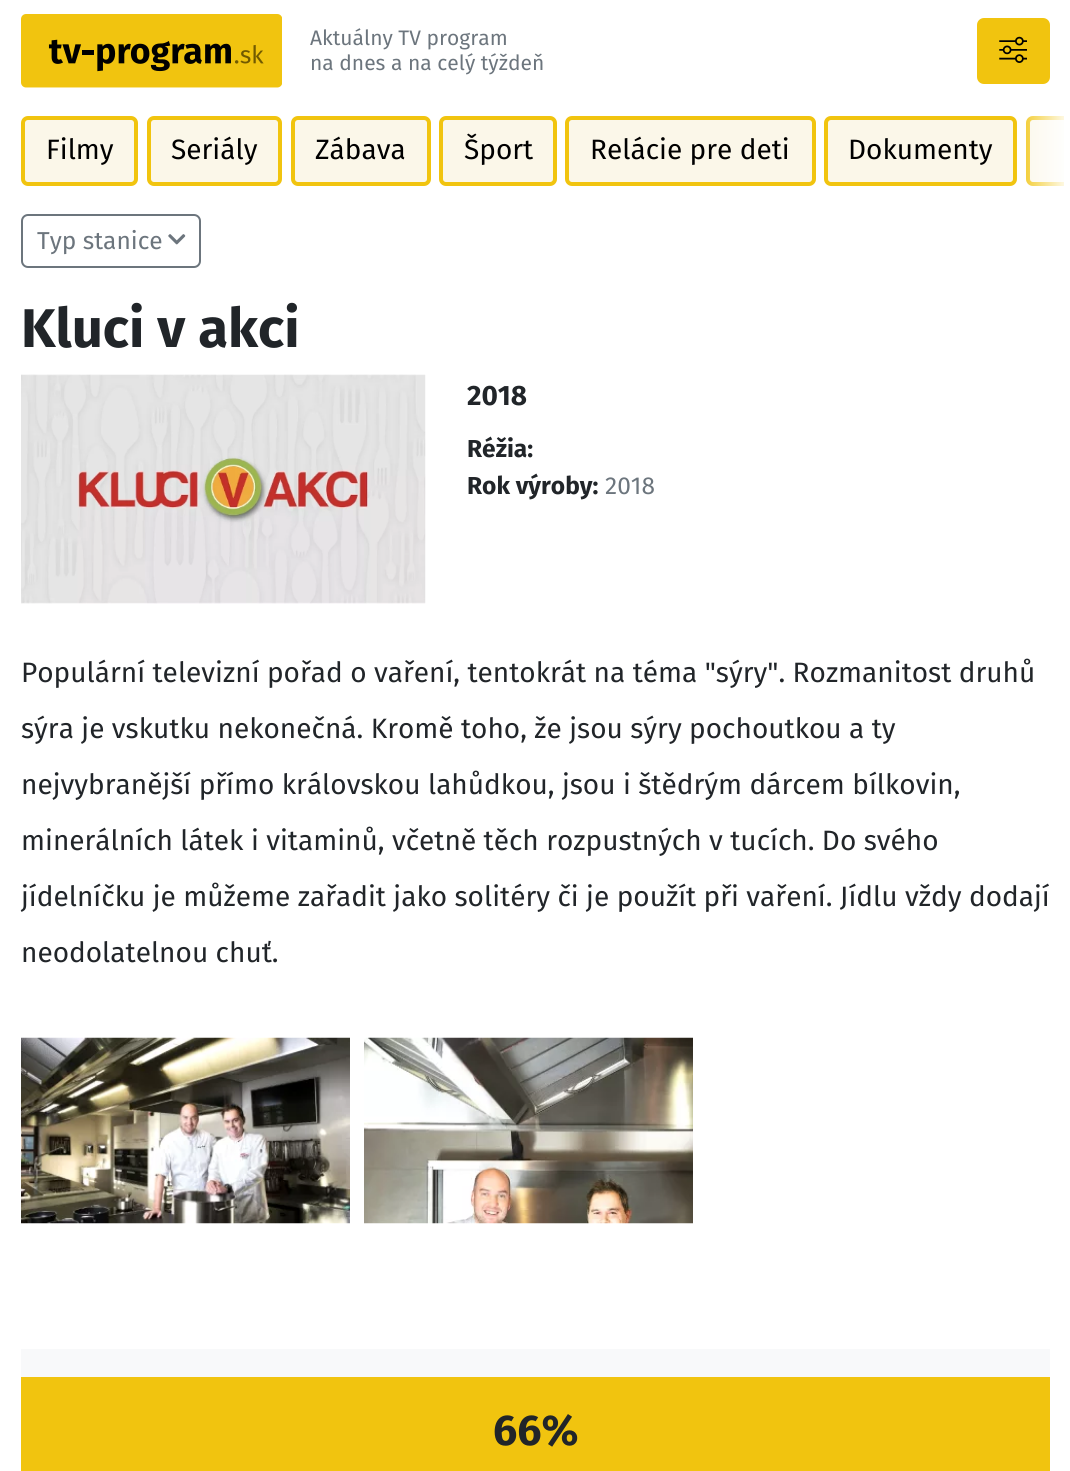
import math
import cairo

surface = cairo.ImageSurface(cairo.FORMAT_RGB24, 1070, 1471)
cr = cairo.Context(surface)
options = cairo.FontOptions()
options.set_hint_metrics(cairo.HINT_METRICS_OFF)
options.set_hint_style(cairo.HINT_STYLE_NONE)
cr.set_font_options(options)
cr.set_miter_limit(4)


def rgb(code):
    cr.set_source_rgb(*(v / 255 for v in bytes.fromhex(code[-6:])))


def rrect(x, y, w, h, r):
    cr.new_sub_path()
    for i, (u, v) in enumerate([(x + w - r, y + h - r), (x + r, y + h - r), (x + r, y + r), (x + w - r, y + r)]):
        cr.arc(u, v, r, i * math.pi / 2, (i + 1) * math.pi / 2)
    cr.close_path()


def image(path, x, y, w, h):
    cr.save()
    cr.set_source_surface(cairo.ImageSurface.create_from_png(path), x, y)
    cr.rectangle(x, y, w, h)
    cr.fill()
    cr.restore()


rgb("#ffffff")
cr.paint()
image("img/1.png", 21, 14, 261, 74)
rgb("#f1c40f")
rrect(978, 19, 71, 64, 6)
cr.fill_preserve()
cr.stroke()
image("img/2.png", 999, 36, 28, 27)
rgb("#fbf7e9")
rrect(23, 118, 113, 66, 5)
cr.fill_preserve()
rgb("#f1c40f")
cr.set_line_width(4)
cr.stroke()
rgb("#fbf7e9")
rrect(149, 118, 131, 66, 5)
cr.fill_preserve()
rgb("#f1c40f")
cr.stroke()
rgb("#fbf7e9")
rrect(293, 118, 136, 66, 5)
cr.fill_preserve()
rgb("#f1c40f")
cr.stroke()
rgb("#fbf7e9")
rrect(441, 118, 114, 66, 5)
cr.fill_preserve()
rgb("#f1c40f")
cr.stroke()
rgb("#fbf7e9")
rrect(567, 118, 247, 66, 5)
cr.fill_preserve()
rgb("#f1c40f")
cr.stroke()
rgb("#fbf7e9")
rrect(826, 118, 189, 66, 5)
cr.fill_preserve()
rgb("#f1c40f")
cr.stroke()
rgb("#fbf7e9")
cr.new_path()
cr.move_to(1033, 116)
cr.line_to(1064, 116)
cr.line_to(1064, 186)
cr.line_to(1033, 186)
cr.curve_to(1029, 186, 1026, 183, 1026, 179)
cr.line_to(1026, 123)
cr.curve_to(1026, 119, 1029, 116, 1033, 116)
cr.close_path()
cr.fill()
cr.save()
cr.rectangle(7, 102, 1057, 98)
cr.clip()
rrect(1028, 118, 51, 66, 5)
rgb("#f1c40f")
cr.stroke()
cr.restore()
gradient = cairo.LinearGradient(1015, 151, 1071, 151)
gradient.add_color_stop_rgba(0, 1, 1, 1, 0)
gradient.add_color_stop_rgba(1, 1, 1, 1, 1)
cr.set_source(gradient)
cr.rectangle(1016, 116, 48, 70)
cr.fill()
rrect(22, 215, 178, 52, 6)
rgb("#6c757d")
cr.set_line_width(2)
cr.stroke()
image("img/3.png", 168, 234, 18, 11)
image("img/4.png", 21, 374, 405, 230)
image("img/5.png", 21, 1037, 329, 187)
image("img/6.png", 364, 1037, 329, 187)
rgb("#f8f9fa")
cr.rectangle(21, 1349, 1029, 28)
cr.fill()
rgb("#f1c40f")
cr.rectangle(21, 1377, 1029, 94)
cr.fill()
cr.select_font_face("Fira Sans")
cr.set_font_size(21)
rgb("#6c757d")
cr.move_to(310, 45)
cr.show_text("Aktuálny TV program")
cr.move_to(310, 70)
cr.show_text("na dnes a na celý týždeň")
cr.set_font_size(28)
rgb("#000000")
for x, y, s in [
    (46, 159, "Filmy"),
    (171, 159, "Seriály"),
    (315, 159, "Zábava"),
    (464, 159, "Šport"),
    (590, 159, "Relácie pre deti"),
    (848, 159, "Dokumenty"),
]:
    cr.move_to(x, y)
    cr.show_text(s)
cr.set_font_size(24.5)
rgb("#6c757d")
cr.move_to(37, 249)
cr.show_text("Typ stanice")
cr.select_font_face("Fira Sans", cairo.FONT_SLANT_NORMAL, cairo.FONT_WEIGHT_BOLD)
cr.set_font_size(54.5)
rgb("#212529")
cr.move_to(21, 347)
cr.show_text("Kluci v akci")
cr.set_font_size(28)
cr.move_to(467, 405)
cr.show_text("2018")
cr.set_font_size(24.5)
cr.move_to(467, 457)
cr.show_text("Réžia:")
cr.move_to(467, 494)
cr.show_text("Rok výroby:")
cr.select_font_face("Fira Sans")
rgb("#6c757d")
cr.move_to(605, 494)
cr.show_text("2018")
cr.set_font_size(28)
rgb("#212529")
for x, y, s in [
    (21, 682, "Populární televizní pořad o vaření, tentokrát na téma \"sýry\". Rozmanitost druhů"),
    (21, 738, "sýra je vskutku nekonečná. Kromě toho, že jsou sýry pochoutkou a ty"),
    (21, 794, "nejvybranější přímo královskou lahůdkou, jsou i štědrým dárcem bílkovin,"),
    (21, 850, "minerálních látek i vitaminů, včetně těch rozpustných v tucích. Do svého"),
    (21, 906, "jídelníčku je můžeme zařadit jako solitéry či je použít při vaření. Jídlu vždy dodají"),
    (21, 962, "neodolatelnou chuť."),
]:
    cr.move_to(x, y)
    cr.show_text(s)
cr.select_font_face("Fira Sans", cairo.FONT_SLANT_NORMAL, cairo.FONT_WEIGHT_BOLD)
cr.set_font_size(43)
cr.move_to(493, 1445)
cr.show_text("66%")
surface.write_to_png("page.png")
